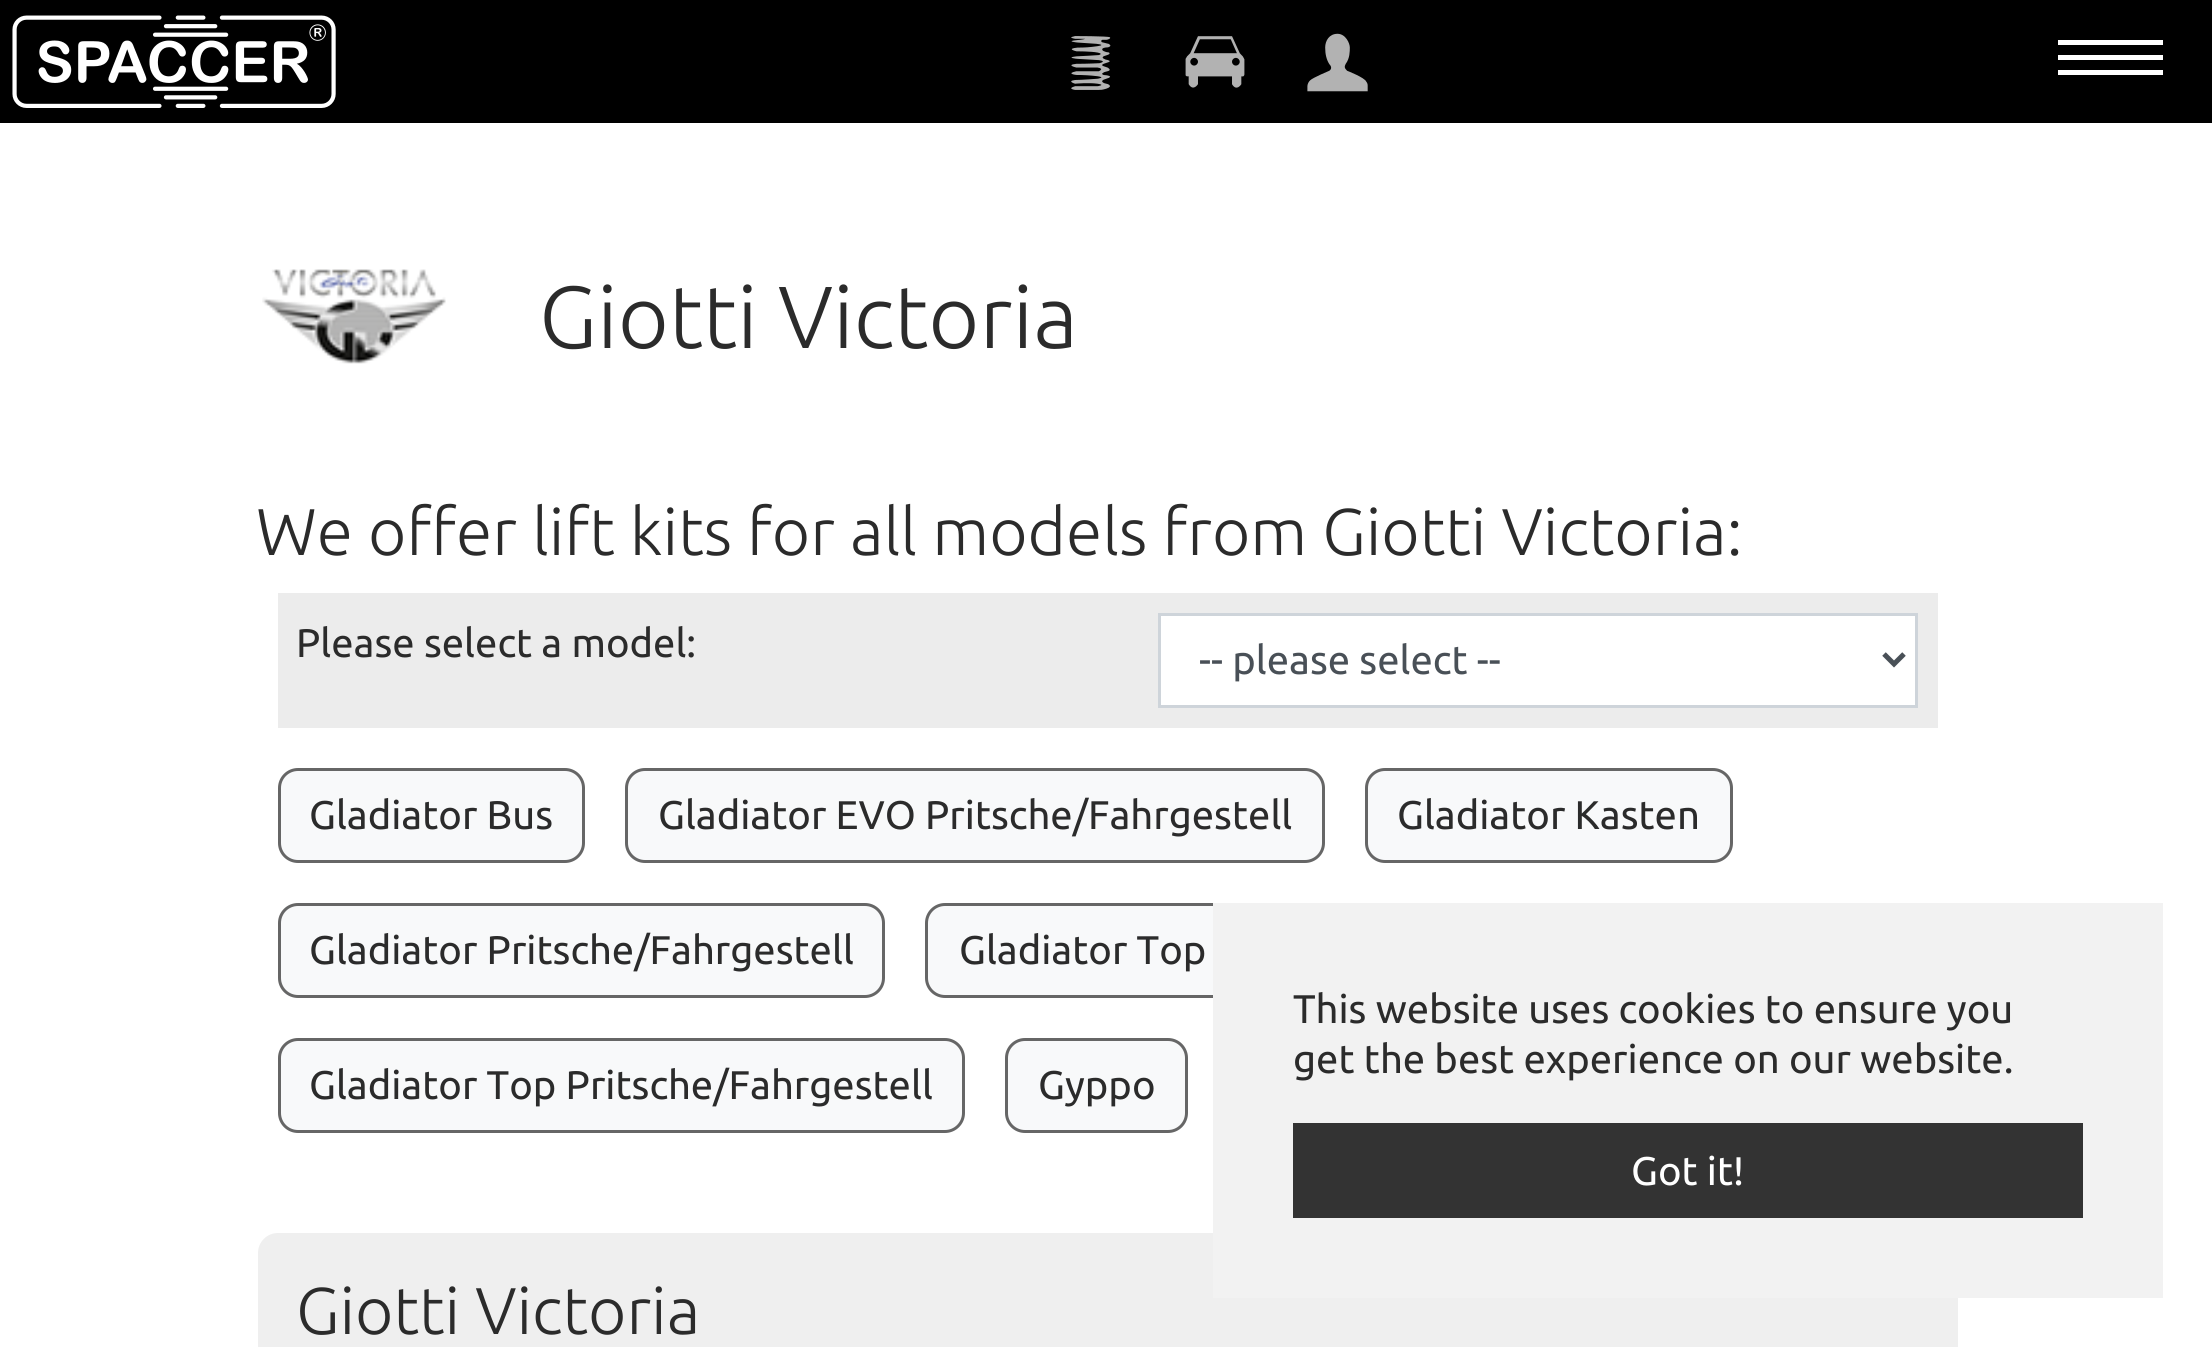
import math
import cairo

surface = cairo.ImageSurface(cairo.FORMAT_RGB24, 2212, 1347)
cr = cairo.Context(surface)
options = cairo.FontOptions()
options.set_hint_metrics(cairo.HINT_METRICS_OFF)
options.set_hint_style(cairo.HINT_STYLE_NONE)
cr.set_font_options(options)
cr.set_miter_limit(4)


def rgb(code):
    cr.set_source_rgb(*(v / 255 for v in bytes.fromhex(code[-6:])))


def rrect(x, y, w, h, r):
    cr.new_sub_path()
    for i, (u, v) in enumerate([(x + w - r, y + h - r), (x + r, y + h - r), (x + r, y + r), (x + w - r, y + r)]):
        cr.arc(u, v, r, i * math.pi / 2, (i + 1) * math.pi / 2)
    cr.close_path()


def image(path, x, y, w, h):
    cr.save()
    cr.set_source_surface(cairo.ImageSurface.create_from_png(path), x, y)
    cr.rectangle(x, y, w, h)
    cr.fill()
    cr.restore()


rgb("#ffffff")
cr.paint()
rgb("#000000")
cr.rectangle(0, 0, 2212, 123)
cr.fill()
image("img/1.png", 12, 15, 324, 93)
image("img/2.png", 1071, 36, 40, 54)
image("img/3.png", 1185, 36, 60, 52)
image("img/4.png", 1307, 33, 61, 59)
for x, y, w, h, color in [
    (2058, 55, 105, 5, "#ffffff"),
    (2058, 40, 105, 5, "#ffffff"),
    (2058, 70, 105, 5, "#ffffff"),
]:
    rgb(color)
    cr.rectangle(x, y, w, h)
    cr.fill()
image("img/5.png", 262, 269, 184, 95)
rgb("#ececec")
cr.rectangle(278, 593, 1660, 135)
cr.fill()
rgb("#ffffff")
cr.rectangle(1159.5, 614.5, 757, 92)
cr.fill_preserve()
rgb("#ced4da")
cr.set_line_width(3)
cr.stroke()
cr.new_path()
cr.move_to(1884, 654)
cr.line_to(1894, 664)
cr.line_to(1904, 654)
rgb("#495057")
cr.set_line_width(5)
cr.stroke()
rgb("#f8f9fa")
rrect(279.5, 769.5, 304, 92, 18.5)
cr.fill_preserve()
rgb("#666666")
cr.set_line_width(3)
cr.stroke()
rgb("#f8f9fa")
rrect(626.5, 769.5, 697, 92, 18.5)
cr.fill_preserve()
rgb("#666666")
cr.stroke()
rgb("#f8f9fa")
rrect(1366.5, 769.5, 365, 92, 18.5)
cr.fill_preserve()
rgb("#666666")
cr.stroke()
rgb("#f8f9fa")
rrect(279.5, 904.5, 604, 92, 18.5)
cr.fill_preserve()
rgb("#666666")
cr.stroke()
rgb("#f8f9fa")
rrect(926.5, 904.5, 445, 92, 18.5)
cr.fill_preserve()
rgb("#666666")
cr.stroke()
rgb("#f8f9fa")
rrect(279.5, 1039.5, 684, 92, 18.5)
cr.fill_preserve()
rgb("#666666")
cr.stroke()
rgb("#f8f9fa")
rrect(1006.5, 1039.5, 180, 92, 18.5)
cr.fill_preserve()
rgb("#666666")
cr.stroke()
rgb("#efefef")
rrect(258, 1233, 1700, 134, 20)
cr.fill()
rgb("#f2f2f2")
cr.rectangle(1213, 903, 950, 395)
cr.fill()
rgb("#333333")
cr.rectangle(1293, 1123, 790, 95)
cr.fill()
cr.select_font_face("Ubuntu Light")
cr.set_font_size(88)
rgb("#2b2b2b")
cr.move_to(539, 348)
cr.show_text("Giotti Victoria")
cr.set_font_size(66)
cr.move_to(256, 555)
cr.show_text("We offer lift kits for all models from Giotti Victoria:")
cr.select_font_face("Ubuntu")
cr.set_font_size(40)
cr.move_to(296, 657)
cr.show_text("Please select a model:")
cr.save()
cr.rectangle(1200, 635, 645, 50)
cr.clip()
rgb("#495057")
cr.move_to(1199, 674)
cr.show_text("-- please select --")
cr.restore()
for x, y, s in [
    (309, 829, "Gladiator Bus"),
    (658, 829, "Gladiator EVO Pritsche/Fahrgestell"),
    (1397, 829, "Gladiator Kasten"),
    (309, 964, "Gladiator Pritsche/Fahrgestell"),
    (959, 964, "Gladiator Top"),
    (309, 1099, "Gladiator Top Pritsche/Fahrgestell"),
    (1038, 1099, "Gyppo"),
]:
    cr.move_to(x, y)
    cr.show_text(s)
cr.select_font_face("Ubuntu Light")
cr.set_font_size(66)
cr.move_to(296, 1334)
cr.show_text("Giotti Victoria")
cr.select_font_face("Ubuntu")
cr.set_font_size(40)
cr.move_to(1293, 1023)
cr.show_text("This website uses cookies to ensure you")
cr.move_to(1293, 1073)
cr.show_text("get the best experience on our website.")
rgb("#ffffff")
cr.move_to(1631, 1185)
cr.show_text("Got it!")
surface.write_to_png("page.png")
